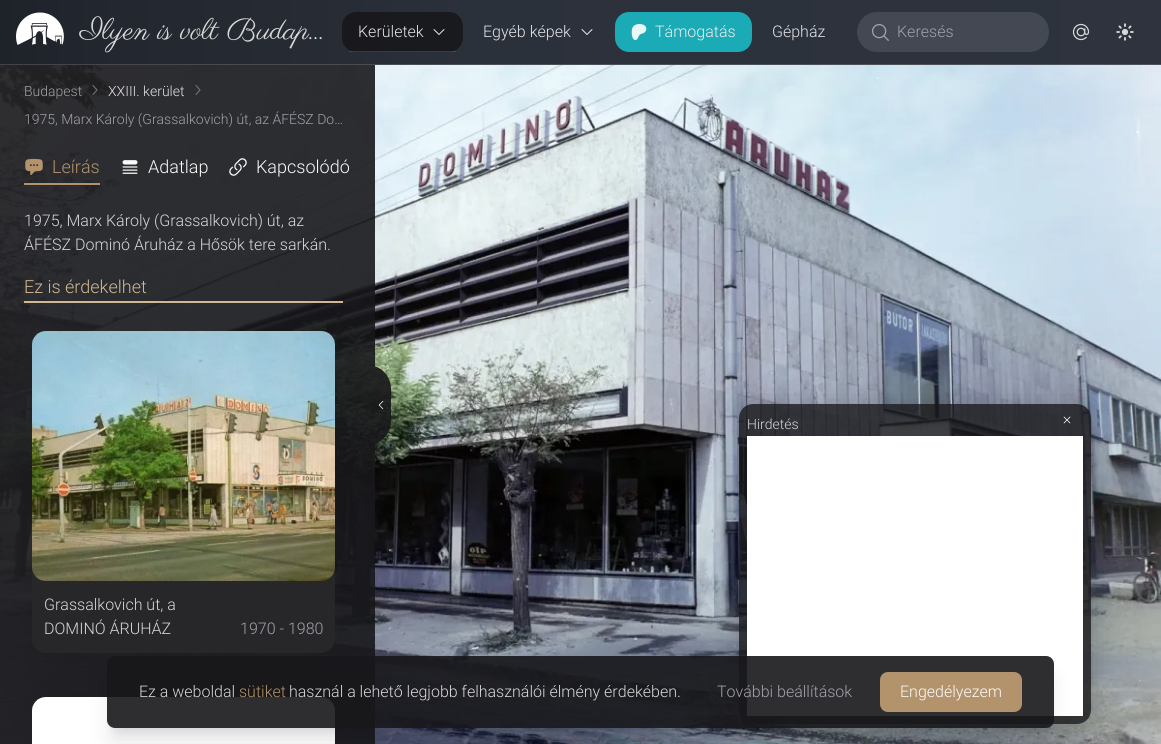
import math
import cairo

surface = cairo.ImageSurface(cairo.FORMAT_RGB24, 1161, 744)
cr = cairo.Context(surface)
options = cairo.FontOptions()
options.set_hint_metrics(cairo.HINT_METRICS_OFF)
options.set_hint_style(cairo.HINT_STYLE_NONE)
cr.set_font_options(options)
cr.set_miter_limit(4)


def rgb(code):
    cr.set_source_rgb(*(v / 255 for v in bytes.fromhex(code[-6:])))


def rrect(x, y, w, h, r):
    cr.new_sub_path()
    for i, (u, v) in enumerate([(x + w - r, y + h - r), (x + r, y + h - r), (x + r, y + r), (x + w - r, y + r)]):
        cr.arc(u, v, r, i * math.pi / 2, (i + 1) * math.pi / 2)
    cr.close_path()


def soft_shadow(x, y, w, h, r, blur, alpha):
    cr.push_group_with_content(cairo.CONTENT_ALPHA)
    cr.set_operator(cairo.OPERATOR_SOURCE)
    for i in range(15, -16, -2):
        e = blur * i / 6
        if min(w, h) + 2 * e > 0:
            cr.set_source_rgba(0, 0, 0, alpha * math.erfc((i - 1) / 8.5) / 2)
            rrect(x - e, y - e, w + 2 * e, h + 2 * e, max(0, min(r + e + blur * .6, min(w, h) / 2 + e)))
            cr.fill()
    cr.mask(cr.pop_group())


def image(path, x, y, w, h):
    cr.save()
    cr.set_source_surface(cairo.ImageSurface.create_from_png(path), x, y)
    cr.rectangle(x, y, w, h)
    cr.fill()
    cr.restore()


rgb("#ffffff")
cr.paint()
gradient = cairo.LinearGradient(0, 372, 1161, 372)
gradient.add_color_stop_rgba(0, 0.118, 0.133, 0.161, 1)
gradient.add_color_stop_rgba(0.1, 0.137, 0.153, 0.184, 1)
gradient.add_color_stop_rgba(0.2, 0.145, 0.165, 0.196, 1)
gradient.add_color_stop_rgba(0.3, 0.153, 0.173, 0.208, 1)
gradient.add_color_stop_rgba(0.4, 0.169, 0.192, 0.231, 1)
gradient.add_color_stop_rgba(1, 0.18, 0.2, 0.243, 1)
cr.set_source(gradient)
cr.rectangle(0, 0, 1161, 64)
cr.fill()
gradient = cairo.LinearGradient(0, 372, 1161, 372)
gradient.add_color_stop_rgba(0, 0.251, 0.263, 0.286, 1)
gradient.add_color_stop_rgba(0.1, 0.267, 0.278, 0.306, 1)
gradient.add_color_stop_rgba(0.2, 0.275, 0.29, 0.318, 1)
gradient.add_color_stop_rgba(0.3, 0.278, 0.298, 0.325, 1)
gradient.add_color_stop_rgba(0.4, 0.294, 0.314, 0.345, 1)
gradient.add_color_stop_rgba(1, 0.302, 0.322, 0.357, 1)
cr.set_source(gradient)
cr.rectangle(0, 64, 1161, 1)
cr.fill()
image("img/1.png", 16, 12, 48, 33)
cr.set_source_rgba(0.094, 0.094, 0.106, 0.9)
rrect(342, 12, 121, 40, 14)
cr.fill()
cr.set_source_rgba(1, 1, 1, 0.14)
cr.rectangle(349, 51, 107, 1)
cr.fill()
image("img/2.png", 433, 29, 12, 6)
image("img/3.png", 581, 29, 12, 6)
rgb("#1aabb6")
rrect(615, 12, 137, 40, 14)
cr.fill()
image("img/4.png", 631, 24, 16, 16)
rgb("#444853")
rrect(857, 12, 192, 40, 20)
cr.fill()
image("img/5.png", 872, 24, 17, 17)
image("img/6.png", 1072, 23, 18, 18)
image("img/7.png", 1116, 23, 18, 18)
image("img/8.png", 0, 65, 1161, 679)
cr.set_source_rgba(0.094, 0.094, 0.106, 0.9)
cr.rectangle(0, 65, 375, 679)
cr.fill()
cr.new_path()
cr.move_to(93, 94.5)
cr.line_to(97, 90)
cr.line_to(93, 85.5)
rgb("#71717a")
cr.set_line_width(1.1)
cr.set_line_cap(cairo.LINE_CAP_ROUND)
cr.set_line_join(cairo.LINE_JOIN_ROUND)
cr.stroke()
cr.new_path()
cr.move_to(196, 94.5)
cr.line_to(200, 90)
cr.line_to(196, 85.5)
cr.stroke()
image("img/9.png", 25, 158, 18, 18)
rgb("#b2936c")
cr.rectangle(24, 183, 76, 2)
cr.fill()
image("img/10.png", 122, 160, 16, 14)
image("img/11.png", 229, 158, 18, 18)
rgb("#d0b893")
cr.rectangle(24, 301, 319, 2)
cr.fill()
rgb("#27272a")
cr.new_path()
cr.move_to(46, 331)
cr.line_to(321, 331)
cr.curve_to(328.5, 331, 335, 337.5, 335, 345)
cr.line_to(335, 581)
cr.line_to(32, 581)
cr.line_to(32, 345)
cr.curve_to(32, 337.5, 38.5, 331, 46, 331)
cr.close_path()
cr.fill()
image("img/12.png", 32, 331, 303, 250)
cr.new_path()
cr.move_to(32, 581)
cr.line_to(335, 581)
cr.line_to(335, 639)
cr.curve_to(335, 646.5, 328.5, 653, 321, 653)
cr.line_to(46, 653)
cr.curve_to(38.5, 653, 32, 646.5, 32, 639)
cr.close_path()
cr.fill()
image("img/13.png", 32, 697, 303, 47)
cr.set_source_rgba(0.094, 0.094, 0.106, 0.9)
cr.new_path()
cr.move_to(375, 365)
cr.line_to(367, 365)
cr.curve_to(380.5, 365, 391, 375.5, 391, 389)
cr.line_to(391, 421)
cr.curve_to(391, 434.5, 380.5, 445, 367, 445)
cr.line_to(375, 445)
cr.close_path()
cr.fill()
image("img/14.png", 378, 400, 6, 10)
cr.save()
cr.set_fill_rule(cairo.FILL_RULE_EVEN_ODD)
cr.new_path()
cr.move_to(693, 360)
cr.line_to(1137, 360)
cr.line_to(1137, 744)
cr.line_to(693, 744)
cr.close_path()
cr.move_to(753, 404)
cr.line_to(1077, 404)
cr.curve_to(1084.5, 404, 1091, 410.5, 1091, 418)
cr.line_to(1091, 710)
cr.curve_to(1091, 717.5, 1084.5, 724, 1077, 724)
cr.line_to(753, 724)
cr.curve_to(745.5, 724, 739, 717.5, 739, 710)
cr.line_to(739, 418)
cr.curve_to(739, 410.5, 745.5, 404, 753, 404)
cr.close_path()
cr.clip()
rgb("#000000")
soft_shadow(739, 406, 352, 320, 14, 15, 0.22)
cr.restore()
cr.set_source_rgba(0.094, 0.094, 0.106, 0.8)
rrect(739, 404, 352, 320, 14)
cr.fill()
image("img/15.png", 1063, 416, 8, 8)
rgb("#ffffff")
cr.rectangle(747, 436, 336, 280)
cr.fill()
cr.save()
cr.set_fill_rule(cairo.FILL_RULE_EVEN_ODD)
cr.new_path()
cr.move_to(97, 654)
cr.line_to(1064, 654)
cr.line_to(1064, 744)
cr.line_to(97, 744)
cr.close_path()
cr.move_to(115, 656)
cr.line_to(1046, 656)
cr.curve_to(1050.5, 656, 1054, 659.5, 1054, 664)
cr.line_to(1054, 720)
cr.curve_to(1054, 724.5, 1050.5, 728, 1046, 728)
cr.line_to(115, 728)
cr.curve_to(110.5, 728, 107, 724.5, 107, 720)
cr.line_to(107, 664)
cr.curve_to(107, 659.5, 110.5, 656, 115, 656)
cr.close_path()
cr.clip()
rgb("#000000")
soft_shadow(113, 670, 935, 60, 2, 5, 0.1)
cr.restore()
cr.save()
cr.set_fill_rule(cairo.FILL_RULE_EVEN_ODD)
cr.new_path()
cr.move_to(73, 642)
cr.line_to(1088, 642)
cr.line_to(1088, 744)
cr.line_to(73, 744)
cr.close_path()
cr.move_to(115, 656)
cr.line_to(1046, 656)
cr.curve_to(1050.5, 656, 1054, 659.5, 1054, 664)
cr.line_to(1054, 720)
cr.curve_to(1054, 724.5, 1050.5, 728, 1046, 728)
cr.line_to(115, 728)
cr.curve_to(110.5, 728, 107, 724.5, 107, 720)
cr.line_to(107, 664)
cr.curve_to(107, 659.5, 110.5, 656, 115, 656)
cr.close_path()
cr.clip()
rgb("#000000")
soft_shadow(112, 681, 937, 62, 3, 12.5, 0.1)
cr.restore()
cr.set_source_rgba(0.094, 0.094, 0.106, 0.9)
rrect(107, 656, 947, 72, 8)
cr.fill()
rgb("#b2936c")
rrect(880, 672, 142, 40, 8)
cr.fill()
cr.select_font_face("Parisienne")
cr.set_font_size(30)
rgb("#d7d7d7")
cr.move_to(80, 39)
cr.show_text("Ilyen is volt Budap…")
cr.select_font_face("Roboto Light")
cr.set_font_size(16)
rgb("#e4e4e7")
cr.move_to(358, 37)
cr.show_text("Kerületek")
cr.move_to(483, 37)
cr.show_text("Egyéb képek")
rgb("#eaebec")
cr.move_to(655, 37)
cr.show_text("Támogatás")
rgb("#e4e4e7")
cr.move_to(772, 37)
cr.show_text("Gépház")
rgb("#a1a1aa")
cr.move_to(897, 37)
cr.show_text("Keresés")
cr.set_font_size(14)
cr.move_to(24, 96)
cr.show_text("Budapest")
rgb("#e4e4e7")
cr.move_to(108, 96)
cr.show_text("XXIII. kerület")
rgb("#a1a1aa")
cr.move_to(24, 124)
cr.show_text("1975, Marx Károly (Grassalkovich) út, az ÁFÉSZ Do…")
cr.set_font_size(18)
rgb("#b2936c")
cr.move_to(52, 173)
cr.show_text("Leírás")
rgb("#fafafa")
cr.move_to(148, 173)
cr.show_text("Adatlap")
cr.move_to(256, 173)
cr.show_text("Kapcsolódó")
cr.set_font_size(16)
rgb("#d7d7d7")
cr.move_to(24, 226)
cr.show_text("1975, Marx Károly (Grassalkovich) út, az")
cr.move_to(24, 250)
cr.show_text("ÁFÉSZ Dominó Áruház a Hősök tere sarkán.")
cr.set_font_size(18)
rgb("#d0b893")
cr.move_to(24, 293)
cr.show_text("Ez is érdekelhet")
cr.set_font_size(16)
rgb("#d7d7d7")
cr.move_to(44, 610)
cr.show_text("Grassalkovich út, a")
cr.move_to(44, 634)
cr.show_text("DOMINÓ ÁRUHÁZ")
rgb("#a1a1aa")
cr.move_to(240, 634)
cr.show_text("1970 - 1980")
cr.set_font_size(14)
rgb("#d7d7d7")
cr.move_to(747, 429)
cr.show_text("Hirdetés")
cr.set_font_size(16)
cr.move_to(139, 697)
cr.show_text("Ez a weboldal")
rgb("#b2936c")
cr.move_to(239, 697)
cr.show_text("sütiket")
rgb("#d7d7d7")
cr.move_to(289, 697)
cr.show_text("használ a lehető legjobb felhasználói élmény érdekében.")
rgb("#a1a1aa")
cr.move_to(717, 697)
cr.show_text("További beállítások")
rgb("#fafafa")
cr.move_to(900, 697)
cr.show_text("Engedélyezem")
surface.write_to_png("page.png")
